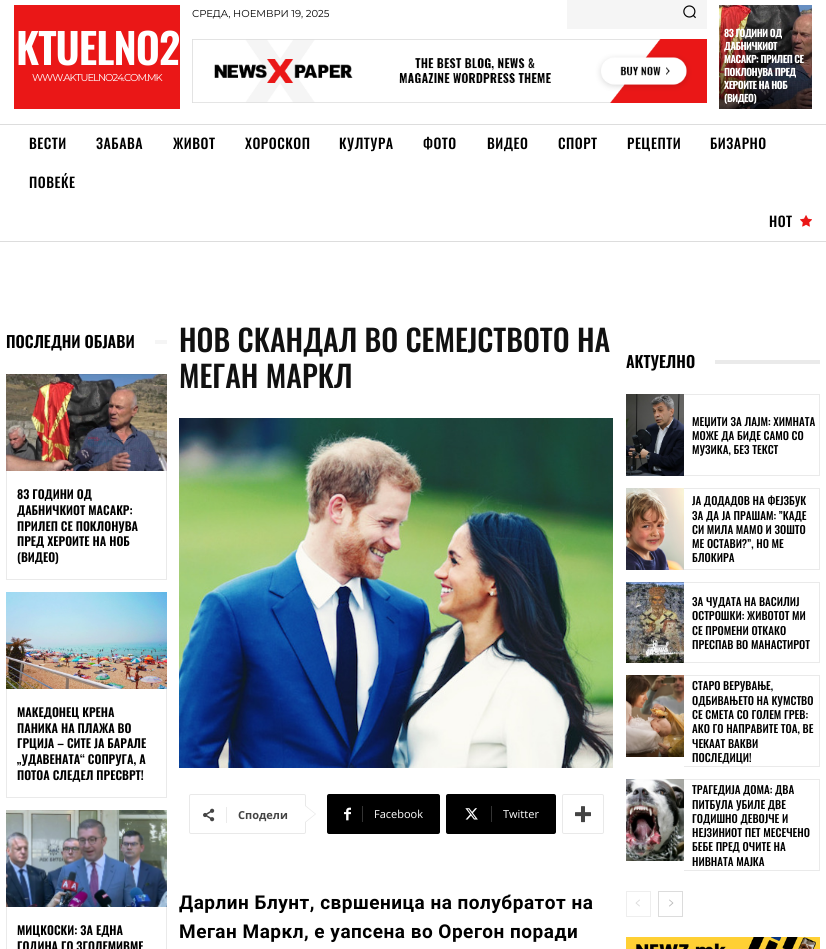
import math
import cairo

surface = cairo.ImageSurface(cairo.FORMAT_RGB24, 826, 949)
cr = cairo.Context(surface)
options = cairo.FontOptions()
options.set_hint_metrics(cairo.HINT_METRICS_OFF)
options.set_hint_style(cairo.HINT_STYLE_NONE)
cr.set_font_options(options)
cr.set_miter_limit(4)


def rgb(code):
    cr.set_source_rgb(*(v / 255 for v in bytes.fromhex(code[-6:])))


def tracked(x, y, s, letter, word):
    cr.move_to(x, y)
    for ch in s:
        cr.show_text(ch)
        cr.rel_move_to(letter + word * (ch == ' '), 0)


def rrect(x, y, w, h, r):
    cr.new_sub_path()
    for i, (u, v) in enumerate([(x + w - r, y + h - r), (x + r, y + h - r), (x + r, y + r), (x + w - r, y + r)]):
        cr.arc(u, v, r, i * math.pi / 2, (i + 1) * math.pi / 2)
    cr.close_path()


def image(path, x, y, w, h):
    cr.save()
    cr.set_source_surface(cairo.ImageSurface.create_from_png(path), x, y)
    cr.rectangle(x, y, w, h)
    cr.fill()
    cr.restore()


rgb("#ffffff")
cr.paint()
rgb("#f5f5f5")
cr.rectangle(567, 0, 140, 29)
cr.fill()
image("img/1.png", 683, 5, 13, 14)
image("img/2.png", 192, 39, 515, 64)
rgb("#ea1717")
cr.rectangle(14, 5, 166, 104)
cr.fill()
image("img/3.png", 719, 5, 93, 104)
rgb("#dddddd")
cr.rectangle(0, 124, 826, 1)
cr.fill()
cr.rectangle(0, 241, 826, 1)
cr.fill()
image("img/4.png", 800, 215, 12, 12)
rgb("#f5f5f5")
cr.rectangle(155, 340, 12, 4)
cr.fill()
image("img/5.png", 6, 374, 161, 97)
for x, y, w, h, color in [
    (166, 471, 1, 109, "#eaeaea"),
    (6, 579, 161, 1, "#eaeaea"),
    (6, 471, 1, 109, "#eaeaea"),
]:
    rgb(color)
    cr.rectangle(x, y, w, h)
    cr.fill()
image("img/6.png", 6, 592, 161, 97)
for x, y, w, h, color in [
    (166, 689, 1, 109, "#eaeaea"),
    (6, 797, 161, 1, "#eaeaea"),
    (6, 689, 1, 109, "#eaeaea"),
]:
    rgb(color)
    cr.rectangle(x, y, w, h)
    cr.fill()
image("img/7.png", 6, 810, 161, 97)
cr.rectangle(166, 907, 1, 42)
cr.fill()
cr.rectangle(6, 907, 1, 42)
cr.fill()
image("img/8.png", 179, 418, 434, 350)
rrect(189.5, 794.5, 116, 39, 1.5)
rgb("#e9e9e9")
cr.set_line_width(1)
cr.stroke()
cr.new_path()
cr.move_to(305, 823)
cr.line_to(305, 805)
cr.line_to(316, 814)
cr.close_path()
cr.fill()
image("img/9.png", 203, 808, 12, 14)
rgb("#ebebeb")
cr.rectangle(226, 807, 1, 16)
cr.fill()
rgb("#ffffff")
cr.new_path()
cr.move_to(305, 822)
cr.line_to(305, 806)
cr.line_to(315, 814)
cr.close_path()
cr.fill()
rgb("#000000")
cr.new_path()
cr.move_to(362, 794)
cr.line_to(438, 794)
cr.curve_to(439, 794, 440, 795, 440, 796)
cr.line_to(440, 832)
cr.curve_to(440, 833, 439, 834, 438, 834)
cr.line_to(362, 834)
cr.close_path()
cr.fill()
cr.new_path()
cr.move_to(329, 794)
cr.line_to(368, 794)
cr.line_to(368, 834)
cr.line_to(329, 834)
cr.curve_to(328, 834, 327, 833, 327, 832)
cr.line_to(327, 796)
cr.curve_to(327, 795, 328, 794, 329, 794)
cr.close_path()
cr.fill()
image("img/10.png", 344, 807, 7, 14)
rgb("#333333")
cr.rectangle(362, 806, 1, 16)
cr.fill()
rgb("#000000")
cr.new_path()
cr.move_to(491, 794)
cr.line_to(554, 794)
cr.curve_to(555, 794, 556, 795, 556, 796)
cr.line_to(556, 832)
cr.curve_to(556, 833, 555, 834, 554, 834)
cr.line_to(491, 834)
cr.close_path()
cr.fill()
cr.new_path()
cr.move_to(448, 794)
cr.line_to(497, 794)
cr.line_to(497, 834)
cr.line_to(448, 834)
cr.curve_to(447, 834, 446, 833, 446, 832)
cr.line_to(446, 796)
cr.curve_to(446, 795, 447, 794, 448, 794)
cr.close_path()
cr.fill()
image("img/11.png", 465, 808, 13, 12)
rgb("#333333")
cr.rectangle(491, 806, 1, 16)
cr.fill()
rrect(562.5, 794.5, 41, 39, 1.5)
rgb("#e9e9e9")
cr.stroke()
image("img/12.png", 575, 806, 16, 17)
rgb("#eaeaea")
cr.rectangle(715, 360, 105, 4)
cr.fill()
image("img/13.png", 626, 394, 58, 82)
for x, y, w, h, color in [
    (684, 394, 136, 1, "#eaeaea"),
    (819, 394, 1, 82, "#eaeaea"),
    (684, 475, 136, 1, "#eaeaea"),
]:
    rgb(color)
    cr.rectangle(x, y, w, h)
    cr.fill()
image("img/14.png", 626, 488, 58, 82)
for x, y, w, h, color in [
    (684, 488, 136, 1, "#eaeaea"),
    (819, 488, 1, 82, "#eaeaea"),
    (684, 569, 136, 1, "#eaeaea"),
]:
    rgb(color)
    cr.rectangle(x, y, w, h)
    cr.fill()
image("img/15.png", 626, 582, 58, 81)
for x, y, w, h, color in [
    (684, 582, 136, 1, "#eaeaea"),
    (819, 582, 1, 81, "#eaeaea"),
    (684, 662, 136, 1, "#eaeaea"),
]:
    rgb(color)
    cr.rectangle(x, y, w, h)
    cr.fill()
image("img/16.png", 626, 675, 58, 82)
for x, y, w, h, color in [
    (684, 675, 136, 1, "#eaeaea"),
    (819, 675, 1, 92, "#eaeaea"),
    (684, 766, 136, 1, "#eaeaea"),
]:
    rgb(color)
    cr.rectangle(x, y, w, h)
    cr.fill()
image("img/17.png", 626, 779, 58, 82)
for x, y, w, h, color in [
    (684, 779, 136, 1, "#eaeaea"),
    (819, 779, 1, 92, "#eaeaea"),
    (684, 870, 136, 1, "#eaeaea"),
]:
    rgb(color)
    cr.rectangle(x, y, w, h)
    cr.fill()
cr.rectangle(626.5, 891.5, 24, 25)
rgb("#eeeeee")
cr.stroke()
image("img/18.png", 635, 899, 5, 8)
cr.rectangle(658.5, 891.5, 24, 25)
rgb("#dcdcdc")
cr.stroke()
image("img/19.png", 669, 899, 5, 8)
image("img/20.png", 626, 937, 194, 12)
cr.select_font_face("Montserrat")
cr.set_font_size(10)
rgb("#000000")
cr.move_to(192, 17)
cr.show_text("СРЕДА, НОЕМВРИ 19, 2025")
cr.select_font_face("Oswald SemiBold")
cr.set_font_size(42)
rgb("#ffffff")
tracked(16, 65, "KTUELNO2", -1, 0)
cr.select_font_face("Montserrat")
cr.set_font_size(10)
tracked(32, 81, "WWW.AKTUELNO24.COM.MK", -1, 0)
cr.select_font_face("Oswald", cairo.FONT_SLANT_NORMAL, cairo.FONT_WEIGHT_BOLD)
for x, y, s in [
    (724, 37, "83 ГОДИНИ ОД"),
    (724, 50, "ДАБНИЧКИОТ"),
    (724, 63, "МАСАКР: ПРИЛЕП СЕ"),
    (724, 76, "ПОКЛОНУВА ПРЕД"),
    (724, 89, "ХЕРОИТЕ НА НОБ"),
    (724, 102, "(ВИДЕО)"),
]:
    tracked(x, y, s, -0.5, 0)
cr.select_font_face("Oswald Medium")
cr.set_font_size(14)
rgb("#000000")
for x, y, s in [
    (29, 149, "ВЕСТИ"),
    (96, 149, "ЗАБАВА"),
    (173, 149, "ЖИВОТ"),
    (245, 149, "ХОРОСКОП"),
    (339, 149, "КУЛТУРА"),
    (423, 149, "ФОТО"),
    (487, 149, "ВИДЕО"),
    (558, 149, "СПОРТ"),
    (627, 149, "РЕЦЕПТИ"),
    (710, 149, "БИЗАРНО"),
    (29, 188, "ПОВЕЌЕ"),
    (769, 227, "HOT"),
]:
    tracked(x, y, s, 0.5, 0)
cr.select_font_face("Oswald SemiBold")
cr.set_font_size(16)
cr.move_to(6, 348)
cr.show_text("ПОСЛЕДНИ ОБЈАВИ")
cr.set_font_size(12)
for x, y, s in [
    (17, 499, "83 ГОДИНИ ОД"),
    (17, 515, "ДАБНИЧКИОТ МАСАКР:"),
    (17, 531, "ПРИЛЕП СЕ ПОКЛОНУВА"),
    (17, 546, "ПРЕД ХЕРОИТЕ НА НОБ"),
    (17, 562, "(ВИДЕО)"),
    (17, 717, "МАКЕДОНЕЦ КРЕНА"),
    (17, 733, "ПАНИКА НА ПЛАЖА ВО"),
    (17, 748, "ГРЦИЈА – СИТЕ ЈА БАРАЛЕ"),
    (17, 764, "„УДАВЕНАТА“ СОПРУГА, А"),
    (17, 780, "ПОТОА СЛЕДЕЛ ПРЕСВРТ!"),
    (17, 935, "МИЦКОСКИ: ЗА ЕДНА"),
    (17, 951, "ГОДИНА ГО ЗГОЛЕМИВМЕ"),
]:
    cr.move_to(x, y)
    cr.show_text(s)
cr.select_font_face("Oswald Medium")
cr.set_font_size(30)
rgb("#111111")
cr.move_to(179, 352)
cr.show_text("НОВ СКАНДАЛ ВО СЕМЕЈСТВОТО НА")
cr.move_to(179, 388)
cr.show_text("МЕГАН МАРКЛ")
cr.select_font_face("Open Sans", cairo.FONT_SLANT_NORMAL, cairo.FONT_WEIGHT_BOLD)
cr.set_font_size(11)
rgb("#444444")
cr.move_to(238, 819)
cr.show_text("Сподели")
cr.select_font_face("Open Sans")
rgb("#ffffff")
cr.move_to(374, 818)
cr.show_text("Facebook")
cr.move_to(503, 818)
cr.show_text("Twitter")
cr.select_font_face("Roboto", cairo.FONT_SLANT_NORMAL, cairo.FONT_WEIGHT_BOLD)
cr.set_font_size(19)
rgb("#000000")
tracked(179, 909, "Дарлин Блунт, свршеница на полубратот на", 0.5, 0)
tracked(179, 938, "Меган Маркл, е уапсена во Орегон поради", 0.5, 0)
cr.select_font_face("Oswald SemiBold")
cr.set_font_size(16)
cr.move_to(626, 368)
cr.show_text("АКТУЕЛНО")
cr.select_font_face("Oswald Medium")
cr.set_font_size(11)
for x, y, s in [
    (692, 426, "МЕЏИТИ ЗА ЛАЈМ: ХИМНАТА"),
    (692, 440, "МОЖЕ ДА БИДЕ САМО СО"),
    (692, 454, "МУЗИКА, БЕЗ ТЕКСТ"),
    (692, 505, "ЈА ДОДАДОВ НА ФЕЈЗБУК"),
    (692, 520, "ЗА ДА ЈА ПРАШАМ: ”КАДЕ"),
    (692, 534, "СИ МИЛА МАМО И ЗОШТО"),
    (692, 548, "МЕ ОСТАВИ?”, НО МЕ"),
    (692, 562, "БЛОКИРА"),
    (692, 606, "ЗА ЧУДАТА НА ВАСИЛИЈ"),
    (692, 620, "ОСТРОШКИ: ЖИВОТОТ МИ"),
    (692, 635, "СЕ ПРОМЕНИ ОТКАКО"),
    (692, 649, "ПРЕСПАВ ВО МАНАСТИРОТ"),
    (692, 690, "СТАРО ВЕРУВАЊЕ,"),
    (692, 705, "ОДБИВАЊЕТО НА КУМСТВО"),
    (692, 719, "СЕ СМЕТА СО ГОЛЕМ ГРЕВ:"),
    (692, 733, "АКО ГО НАПРАВИТЕ ТОА, ВЕ"),
    (692, 748, "ЧЕКААТ ВАКВИ"),
    (692, 762, "ПОСЛЕДИЦИ!"),
    (692, 794, "ТРАГЕДИЈА ДОМА: ДВА"),
    (692, 809, "ПИТБУЛА УБИЛЕ ДВЕ"),
    (692, 823, "ГОДИШНО ДЕВОЈЧЕ И"),
    (692, 837, "НЕЈЗИНИОТ ПЕТ МЕСЕЧЕНО"),
    (692, 851, "БЕБЕ ПРЕД ОЧИТЕ НА"),
    (692, 866, "НИВНАТА МАЈКА"),
]:
    cr.move_to(x, y)
    cr.show_text(s)
surface.write_to_png("page.png")
